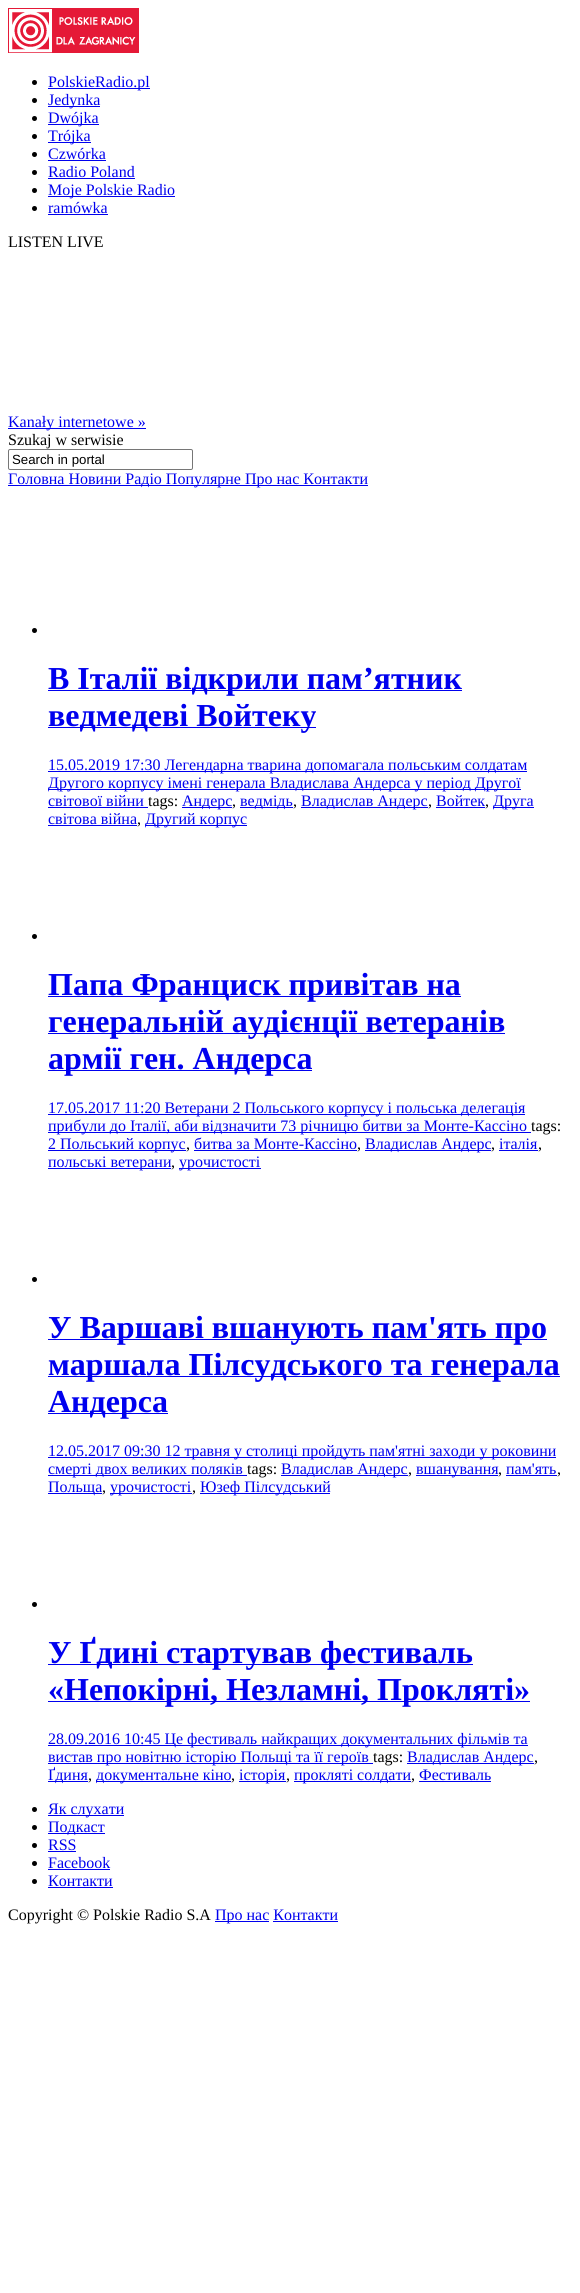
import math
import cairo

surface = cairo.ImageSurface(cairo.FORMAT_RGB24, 580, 2293)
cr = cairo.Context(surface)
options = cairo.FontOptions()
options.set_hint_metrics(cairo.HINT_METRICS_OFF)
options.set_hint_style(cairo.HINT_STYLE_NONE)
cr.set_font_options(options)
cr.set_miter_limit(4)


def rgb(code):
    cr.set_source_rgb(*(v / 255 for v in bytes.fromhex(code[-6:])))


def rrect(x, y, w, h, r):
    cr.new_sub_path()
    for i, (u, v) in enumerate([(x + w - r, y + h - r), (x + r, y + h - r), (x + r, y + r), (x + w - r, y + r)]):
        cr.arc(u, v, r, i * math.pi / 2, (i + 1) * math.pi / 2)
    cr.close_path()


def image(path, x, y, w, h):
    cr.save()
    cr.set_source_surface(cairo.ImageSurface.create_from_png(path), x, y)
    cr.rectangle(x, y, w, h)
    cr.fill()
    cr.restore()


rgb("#ffffff")
cr.paint()
image("img/1.png", 8, 8, 131, 45)
rgb("#000000")
cr.arc(34.5, 82.5, 2.5, 0, 2 * math.pi)
cr.fill()
rgb("#0000ee")
cr.rectangle(48, 88, 102, 1)
cr.fill()
rgb("#000000")
cr.arc(34.5, 100.5, 2.5, 0, 2 * math.pi)
cr.fill()
rgb("#0000ee")
cr.rectangle(48, 106, 52, 1)
cr.fill()
rgb("#000000")
cr.arc(34.5, 118.5, 2.5, 0, 2 * math.pi)
cr.fill()
rgb("#0000ee")
cr.rectangle(48, 124, 51, 1)
cr.fill()
rgb("#000000")
cr.arc(34.5, 136.5, 2.5, 0, 2 * math.pi)
cr.fill()
rgb("#0000ee")
cr.rectangle(48, 142, 43, 1)
cr.fill()
rgb("#000000")
cr.arc(34.5, 154.5, 2.5, 0, 2 * math.pi)
cr.fill()
rgb("#0000ee")
cr.rectangle(48, 160, 58, 1)
cr.fill()
rgb("#000000")
cr.arc(34.5, 172.5, 2.5, 0, 2 * math.pi)
cr.fill()
rgb("#0000ee")
cr.rectangle(48, 178, 87, 1)
cr.fill()
rgb("#000000")
cr.arc(34.5, 190.5, 2.5, 0, 2 * math.pi)
cr.fill()
rgb("#0000ee")
cr.rectangle(48, 196, 127, 1)
cr.fill()
rgb("#000000")
cr.arc(34.5, 208.5, 2.5, 0, 2 * math.pi)
cr.fill()
rgb("#0000ee")
cr.rectangle(48, 214, 60, 1)
cr.fill()
cr.rectangle(8, 428, 138, 1)
cr.fill()
rrect(8.5, 449.5, 184, 20, 1.5)
rgb("#767676")
cr.set_line_width(1)
cr.stroke()
rgb("#0000ee")
cr.rectangle(8, 485, 360, 1)
cr.fill()
rgb("#000000")
cr.arc(34.5, 630.5, 2.5, 0, 2 * math.pi)
cr.fill()
for x, y, w, h, color in [
    (48, 690, 414, 1, "#0000ee"),
    (48, 727, 268, 1, "#0000ee"),
    (48, 771, 479, 1, "#0000ee"),
    (48, 789, 473, 1, "#0000ee"),
    (48, 807, 100, 1, "#0000ee"),
    (182, 807, 50, 1, "#0000ee"),
    (240, 807, 53, 1, "#0000ee"),
    (301, 807, 127, 1, "#0000ee"),
    (436, 807, 49, 1, "#0000ee"),
    (493, 807, 41, 1, "#0000ee"),
    (48, 825, 89, 1, "#0000ee"),
    (145, 825, 102, 1, "#0000ee"),
]:
    rgb(color)
    cr.rectangle(x, y, w, h)
    cr.fill()
rgb("#000000")
cr.arc(34.5, 936.5, 2.5, 0, 2 * math.pi)
cr.fill()
for x, y, w, h, color in [
    (48, 996, 413, 1, "#0000ee"),
    (48, 1033, 457, 1, "#0000ee"),
    (48, 1070, 264, 1, "#0000ee"),
    (48, 1114, 477, 1, "#0000ee"),
    (48, 1132, 483, 1, "#0000ee"),
    (48, 1150, 138, 1, "#0000ee"),
    (194, 1150, 163, 1, "#0000ee"),
    (365, 1150, 126, 1, "#0000ee"),
    (499, 1150, 39, 1, "#0000ee"),
    (48, 1168, 123, 1, "#0000ee"),
    (179, 1168, 82, 1, "#0000ee"),
]:
    rgb(color)
    cr.rectangle(x, y, w, h)
    cr.fill()
rgb("#000000")
cr.arc(34.5, 1279.5, 2.5, 0, 2 * math.pi)
cr.fill()
for x, y, w, h, color in [
    (48, 1339, 499, 1, "#0000ee"),
    (48, 1376, 512, 1, "#0000ee"),
    (48, 1413, 120, 1, "#0000ee"),
    (48, 1457, 508, 1, "#0000ee"),
    (48, 1475, 199, 1, "#0000ee"),
    (281, 1475, 127, 1, "#0000ee"),
    (416, 1475, 82, 1, "#0000ee"),
    (506, 1475, 51, 1, "#0000ee"),
    (48, 1493, 54, 1, "#0000ee"),
    (110, 1493, 82, 1, "#0000ee"),
    (200, 1493, 130, 1, "#0000ee"),
]:
    rgb(color)
    cr.rectangle(x, y, w, h)
    cr.fill()
rgb("#000000")
cr.arc(34.5, 1604.5, 2.5, 0, 2 * math.pi)
cr.fill()
for x, y, w, h, color in [
    (48, 1664, 425, 1, "#0000ee"),
    (48, 1701, 482, 1, "#0000ee"),
    (48, 1745, 480, 1, "#0000ee"),
    (48, 1763, 325, 1, "#0000ee"),
    (407, 1763, 127, 1, "#0000ee"),
    (48, 1781, 40, 1, "#0000ee"),
    (96, 1781, 135, 1, "#0000ee"),
    (239, 1781, 47, 1, "#0000ee"),
    (294, 1781, 117, 1, "#0000ee"),
    (419, 1781, 72, 1, "#0000ee"),
]:
    rgb(color)
    cr.rectangle(x, y, w, h)
    cr.fill()
rgb("#000000")
cr.arc(34.5, 1809.5, 2.5, 0, 2 * math.pi)
cr.fill()
rgb("#0000ee")
cr.rectangle(48, 1815, 76, 1)
cr.fill()
rgb("#000000")
cr.arc(34.5, 1827.5, 2.5, 0, 2 * math.pi)
cr.fill()
rgb("#0000ee")
cr.rectangle(48, 1833, 57, 1)
cr.fill()
rgb("#000000")
cr.arc(34.5, 1845.5, 2.5, 0, 2 * math.pi)
cr.fill()
rgb("#0000ee")
cr.rectangle(48, 1851, 28, 1)
cr.fill()
rgb("#000000")
cr.arc(34.5, 1863.5, 2.5, 0, 2 * math.pi)
cr.fill()
rgb("#0000ee")
cr.rectangle(48, 1869, 62, 1)
cr.fill()
rgb("#000000")
cr.arc(34.5, 1881.5, 2.5, 0, 2 * math.pi)
cr.fill()
for x, y, w, h, color in [
    (48, 1887, 65, 1, "#0000ee"),
    (215, 1921, 54, 1, "#0000ee"),
    (273, 1921, 65, 1, "#0000ee"),
]:
    rgb(color)
    cr.rectangle(x, y, w, h)
    cr.fill()
cr.select_font_face("Liberation Serif")
cr.set_font_size(16)
for x, y, s in [
    (48, 87, "PolskieRadio.pl"),
    (48, 105, "Jedynka"),
    (48, 123, "Dwójka"),
    (48, 141, "Trójka"),
    (48, 159, "Czwórka"),
    (48, 177, "Radio Poland"),
    (48, 195, "Moje Polskie Radio"),
    (48, 213, "ramówka"),
]:
    cr.move_to(x, y)
    cr.show_text(s)
rgb("#000000")
cr.move_to(8, 247)
cr.show_text("LISTEN LIVE")
rgb("#0000ee")
cr.move_to(8, 427)
cr.show_text("Kanały internetowe »")
rgb("#000000")
cr.move_to(8, 445)
cr.show_text("Szukaj w serwisie")
cr.select_font_face("Liberation Sans")
cr.set_font_size(13.25)
cr.move_to(12, 464)
cr.show_text("Search in portal")
cr.select_font_face("Liberation Serif")
cr.set_font_size(16)
rgb("#0000ee")
cr.move_to(8, 484)
cr.show_text("Головна Новини Радіо Популярне Про нас Контакти")
cr.select_font_face("Liberation Serif", cairo.FONT_SLANT_NORMAL, cairo.FONT_WEIGHT_BOLD)
cr.set_font_size(32)
cr.move_to(48, 689)
cr.show_text("В Італії відкрили пам’ятник")
cr.move_to(48, 726)
cr.show_text("ведмедеві Войтеку")
cr.select_font_face("Liberation Serif")
cr.set_font_size(16)
for x, y, s in [
    (48, 770, "15.05.2019 17:30 Легендарна тварина допомагала польським солдатам"),
    (48, 788, "Другого корпусу імені генерала Владислава Андерса у період Другої"),
    (48, 806, "світової війни"),
]:
    cr.move_to(x, y)
    cr.show_text(s)
rgb("#000000")
cr.move_to(148, 806)
cr.show_text("tags:")
rgb("#0000ee")
cr.move_to(182, 806)
cr.show_text("Андерс")
rgb("#000000")
cr.move_to(232, 806)
cr.show_text(",")
rgb("#0000ee")
cr.move_to(240, 806)
cr.show_text("ведмідь")
rgb("#000000")
cr.move_to(293, 806)
cr.show_text(",")
rgb("#0000ee")
cr.move_to(301, 806)
cr.show_text("Владислав Андерс")
rgb("#000000")
cr.move_to(428, 806)
cr.show_text(",")
rgb("#0000ee")
cr.move_to(436, 806)
cr.show_text("Войтек")
rgb("#000000")
cr.move_to(485, 806)
cr.show_text(",")
rgb("#0000ee")
cr.move_to(493, 806)
cr.show_text("Друга")
cr.move_to(48, 824)
cr.show_text("світова війна")
rgb("#000000")
cr.move_to(137, 824)
cr.show_text(",")
rgb("#0000ee")
cr.move_to(145, 824)
cr.show_text("Другий корпус")
cr.select_font_face("Liberation Serif", cairo.FONT_SLANT_NORMAL, cairo.FONT_WEIGHT_BOLD)
cr.set_font_size(32)
for x, y, s in [
    (48, 995, "Папа Франциск привітав на"),
    (48, 1032, "генеральній аудієнції ветеранів"),
    (48, 1069, "армії ген. Андерса"),
]:
    cr.move_to(x, y)
    cr.show_text(s)
cr.select_font_face("Liberation Serif")
cr.set_font_size(16)
cr.move_to(48, 1113)
cr.show_text("17.05.2017 11:20 Ветерани 2 Польського корпусу і польська делегація")
cr.move_to(48, 1131)
cr.show_text("прибули до Італії, аби відзначити 73 річницю битви за Монте-Кассіно")
rgb("#000000")
cr.move_to(531, 1131)
cr.show_text("tags:")
rgb("#0000ee")
cr.move_to(48, 1149)
cr.show_text("2 Польський корпус")
rgb("#000000")
cr.move_to(186, 1149)
cr.show_text(",")
rgb("#0000ee")
cr.move_to(194, 1149)
cr.show_text("битва за Монте-Кассіно")
rgb("#000000")
cr.move_to(357, 1149)
cr.show_text(",")
rgb("#0000ee")
cr.move_to(365, 1149)
cr.show_text("Владислав Андерс")
rgb("#000000")
cr.move_to(491, 1149)
cr.show_text(",")
rgb("#0000ee")
cr.move_to(499, 1149)
cr.show_text("італія")
rgb("#000000")
cr.move_to(538, 1149)
cr.show_text(",")
rgb("#0000ee")
cr.move_to(48, 1167)
cr.show_text("польські ветерани")
rgb("#000000")
cr.move_to(171, 1167)
cr.show_text(",")
rgb("#0000ee")
cr.move_to(179, 1167)
cr.show_text("урочистості")
cr.select_font_face("Liberation Serif", cairo.FONT_SLANT_NORMAL, cairo.FONT_WEIGHT_BOLD)
cr.set_font_size(32)
for x, y, s in [
    (48, 1338, "У Варшаві вшанують пам'ять про"),
    (48, 1375, "маршала Пілсудського та генерала"),
    (48, 1412, "Андерса"),
]:
    cr.move_to(x, y)
    cr.show_text(s)
cr.select_font_face("Liberation Serif")
cr.set_font_size(16)
cr.move_to(48, 1456)
cr.show_text("12.05.2017 09:30 12 травня у столиці пройдуть пам'ятні заходи у роковини")
cr.move_to(48, 1474)
cr.show_text("смерті двох великих поляків")
rgb("#000000")
cr.move_to(247, 1474)
cr.show_text("tags:")
rgb("#0000ee")
cr.move_to(281, 1474)
cr.show_text("Владислав Андерс")
rgb("#000000")
cr.move_to(408, 1474)
cr.show_text(",")
rgb("#0000ee")
cr.move_to(416, 1474)
cr.show_text("вшанування")
rgb("#000000")
cr.move_to(498, 1474)
cr.show_text(",")
rgb("#0000ee")
cr.move_to(506, 1474)
cr.show_text("пам'ять")
rgb("#000000")
cr.move_to(557, 1474)
cr.show_text(",")
rgb("#0000ee")
cr.move_to(48, 1492)
cr.show_text("Польща")
rgb("#000000")
cr.move_to(102, 1492)
cr.show_text(",")
rgb("#0000ee")
cr.move_to(110, 1492)
cr.show_text("урочистості")
rgb("#000000")
cr.move_to(192, 1492)
cr.show_text(",")
rgb("#0000ee")
cr.move_to(200, 1492)
cr.show_text("Юзеф Пілсудський")
cr.select_font_face("Liberation Serif", cairo.FONT_SLANT_NORMAL, cairo.FONT_WEIGHT_BOLD)
cr.set_font_size(32)
cr.move_to(48, 1663)
cr.show_text("У Ґдині стартував фестиваль")
cr.move_to(48, 1700)
cr.show_text("«Непокірні, Незламні, Прокляті»")
cr.select_font_face("Liberation Serif")
cr.set_font_size(16)
cr.move_to(48, 1744)
cr.show_text("28.09.2016 10:45 Це фестиваль найкращих документальних фільмів та")
cr.move_to(48, 1762)
cr.show_text("вистав про новітню історію Польщі та її героїв")
rgb("#000000")
cr.move_to(373, 1762)
cr.show_text("tags:")
rgb("#0000ee")
cr.move_to(407, 1762)
cr.show_text("Владислав Андерс")
rgb("#000000")
cr.move_to(534, 1762)
cr.show_text(",")
rgb("#0000ee")
cr.move_to(48, 1780)
cr.show_text("Ґдиня")
rgb("#000000")
cr.move_to(88, 1780)
cr.show_text(",")
rgb("#0000ee")
cr.move_to(96, 1780)
cr.show_text("документальне кіно")
rgb("#000000")
cr.move_to(231, 1780)
cr.show_text(",")
rgb("#0000ee")
cr.move_to(239, 1780)
cr.show_text("історія")
rgb("#000000")
cr.move_to(286, 1780)
cr.show_text(",")
rgb("#0000ee")
cr.move_to(294, 1780)
cr.show_text("прокляті солдати")
rgb("#000000")
cr.move_to(411, 1780)
cr.show_text(",")
rgb("#0000ee")
for x, y, s in [
    (419, 1780, "Фестиваль"),
    (48, 1814, "Як слухати"),
    (48, 1832, "Подкаст"),
    (48, 1850, "RSS"),
    (48, 1868, "Facebook"),
    (48, 1886, "Контакти"),
]:
    cr.move_to(x, y)
    cr.show_text(s)
rgb("#000000")
cr.move_to(8, 1920)
cr.show_text("Copyright © Polskie Radio S.A")
rgb("#0000ee")
cr.move_to(215, 1920)
cr.show_text("Про нас Контакти")
surface.write_to_png("page.png")
